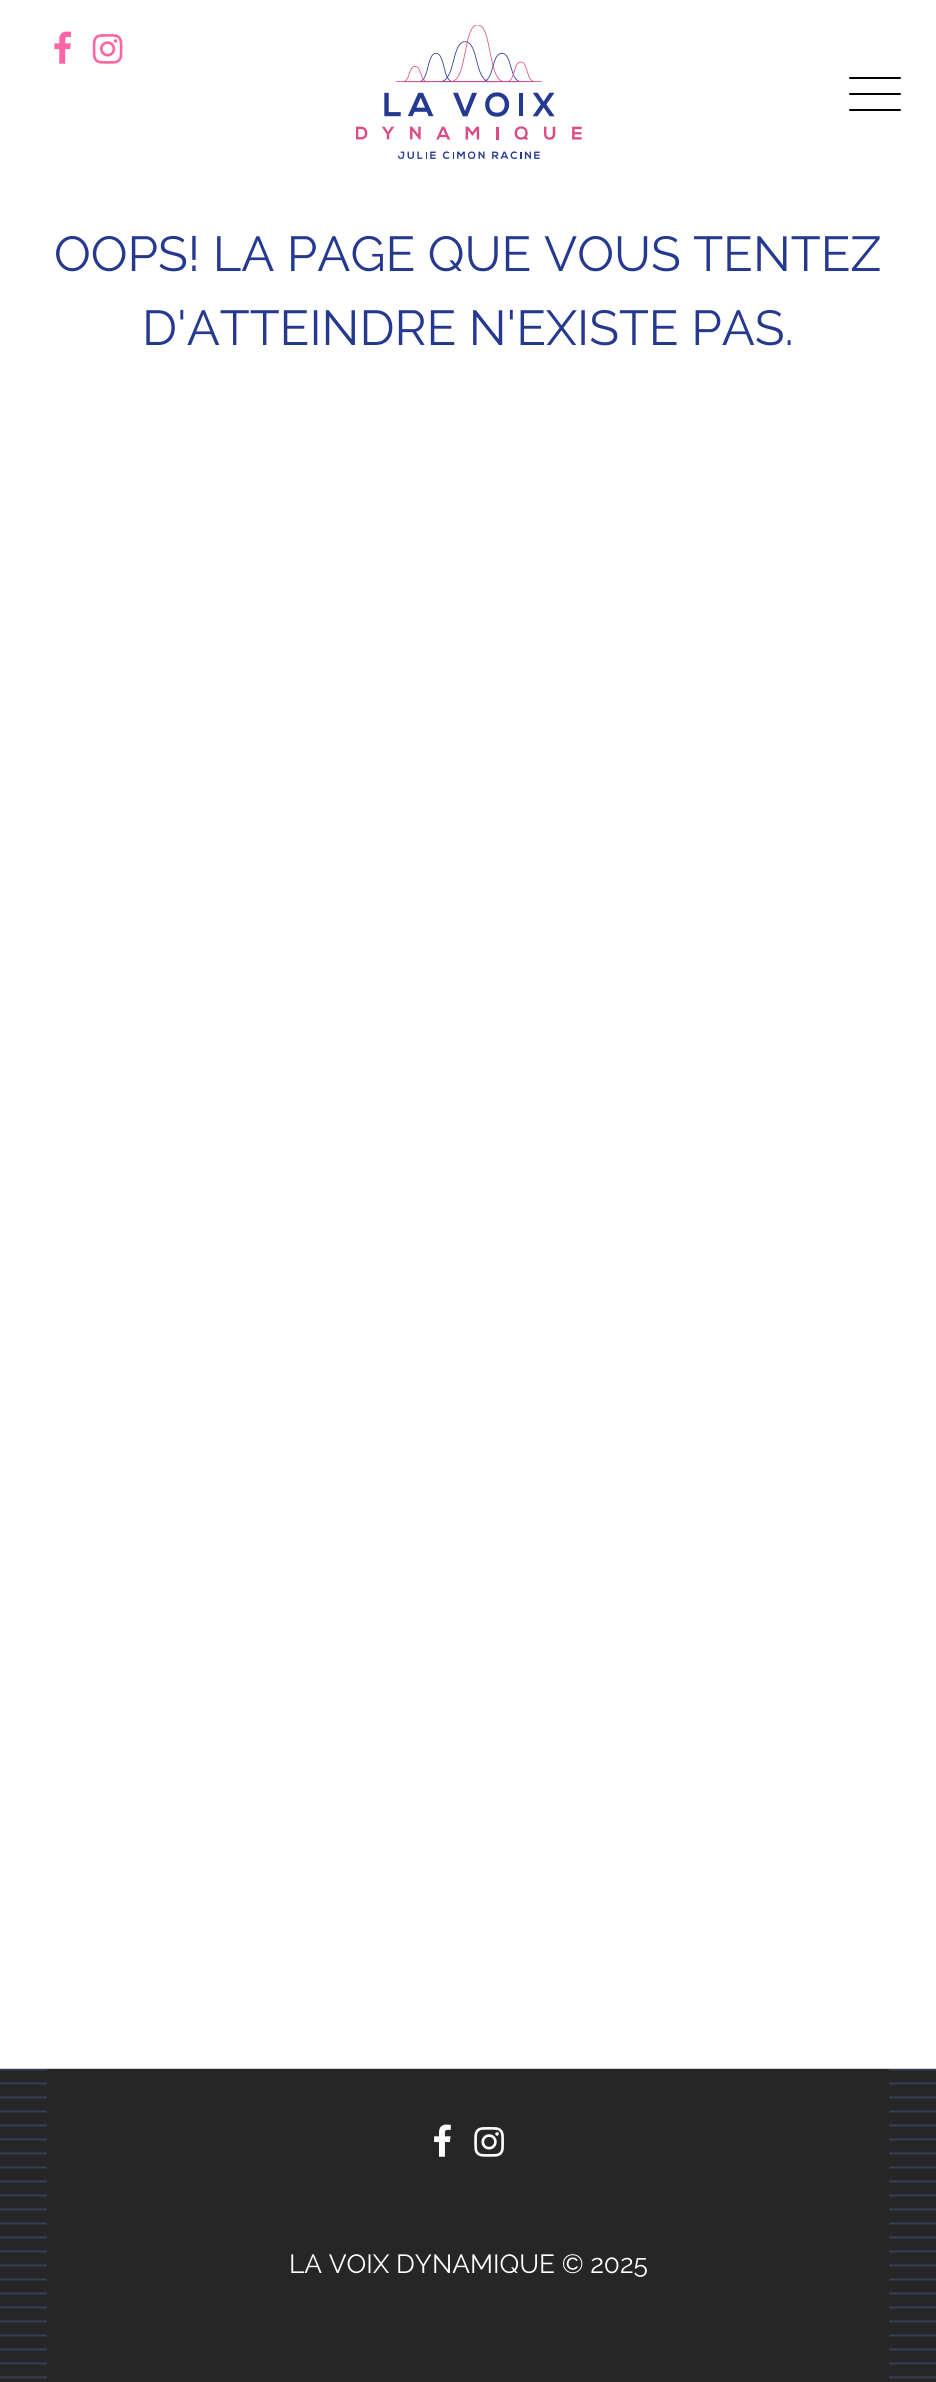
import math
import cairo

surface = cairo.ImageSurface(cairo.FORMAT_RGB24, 936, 2382)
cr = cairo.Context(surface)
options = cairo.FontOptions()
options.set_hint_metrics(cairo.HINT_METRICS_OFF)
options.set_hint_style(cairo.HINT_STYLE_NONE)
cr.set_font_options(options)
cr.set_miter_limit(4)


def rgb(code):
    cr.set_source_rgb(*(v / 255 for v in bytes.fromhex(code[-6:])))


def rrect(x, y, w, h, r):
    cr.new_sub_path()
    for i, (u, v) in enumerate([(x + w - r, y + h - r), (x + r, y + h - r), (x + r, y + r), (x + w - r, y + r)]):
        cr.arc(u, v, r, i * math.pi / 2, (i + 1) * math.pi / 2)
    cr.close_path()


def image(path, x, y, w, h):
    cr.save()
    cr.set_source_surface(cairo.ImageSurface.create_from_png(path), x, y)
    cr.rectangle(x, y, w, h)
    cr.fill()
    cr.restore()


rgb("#ffffff")
cr.paint()
image("img/1.png", 54, 31, 18, 33)
image("img/2.png", 92, 34, 31, 30)
image("img/3.png", 356, 25, 226, 134)
rgb("#000000")
rrect(849, 77, 52, 2, 1)
cr.fill()
rrect(849, 93, 52, 2, 1)
cr.fill()
rrect(849, 109, 52, 2, 1)
cr.fill()
rgb("#262626")
cr.rectangle(0, 2069, 936, 313)
cr.fill()
image("img/4.png", 0, 2068, 936, 311)
cr.rectangle(47, 2069, 842, 310)
cr.fill()
image("img/5.png", 434, 2124, 17, 33)
image("img/6.png", 474, 2127, 30, 30)
cr.select_font_face("Raleway")
cr.set_font_size(49)
rgb("#24398f")
cr.move_to(54, 271)
cr.show_text("OOPS! LA PAGE QUE VOUS TENTEZ")
cr.move_to(142, 345)
cr.show_text("D'ATTEINDRE N'EXISTE PAS.")
cr.set_font_size(26.25)
rgb("#ffffff")
cr.move_to(289, 2273)
cr.show_text("LA VOIX DYNAMIQUE © 2025")
surface.write_to_png("page.png")
